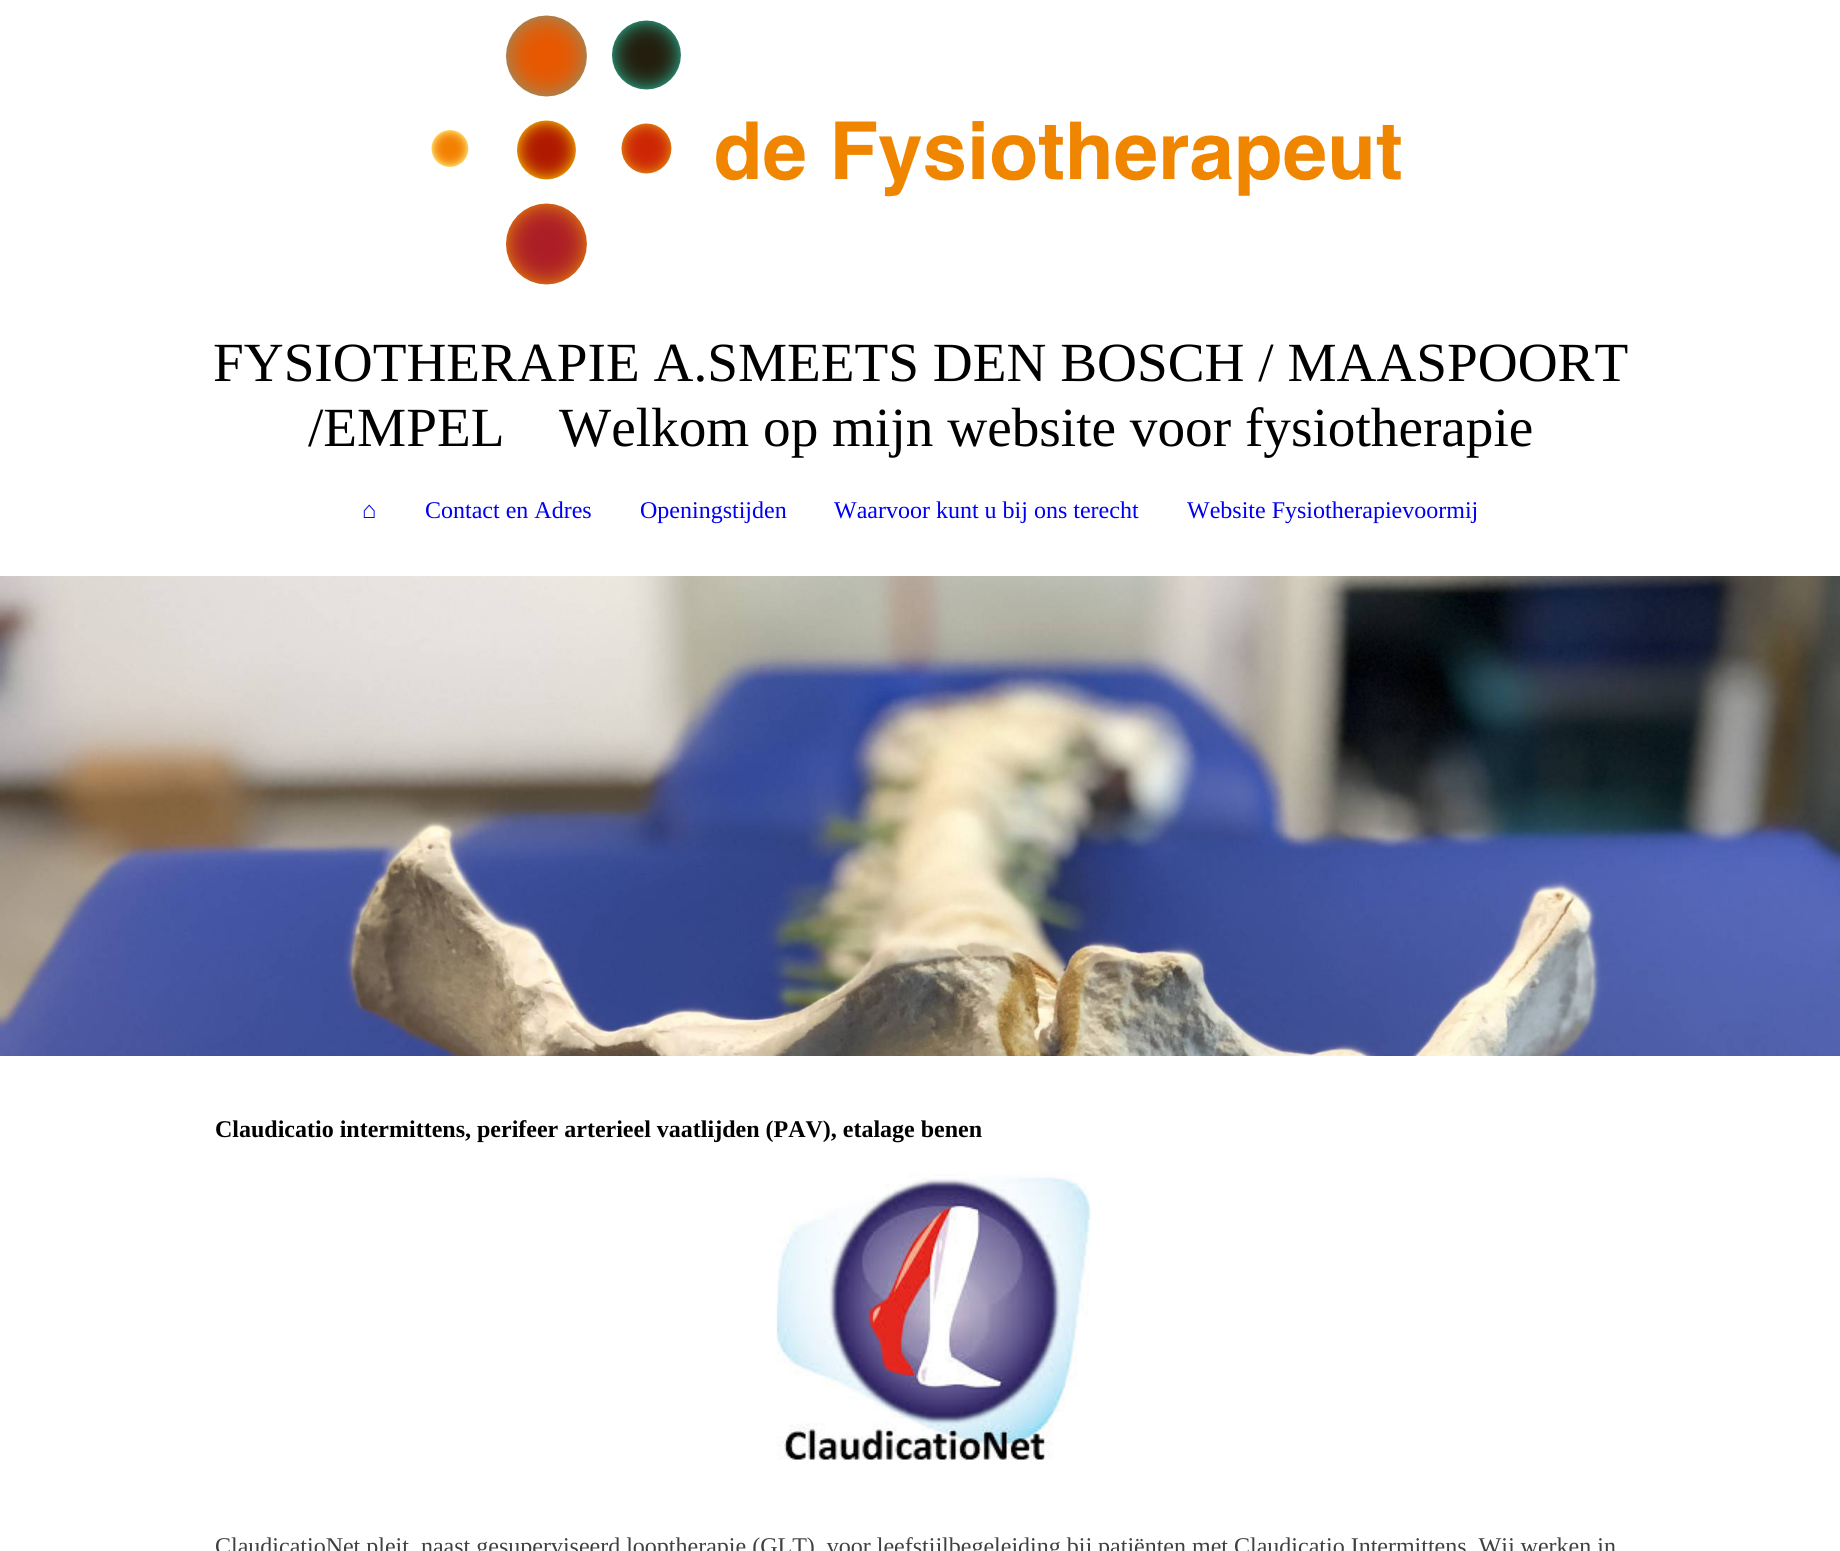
import math
import cairo

surface = cairo.ImageSurface(cairo.FORMAT_RGB24, 1840, 1551)
cr = cairo.Context(surface)
options = cairo.FontOptions()
options.set_hint_metrics(cairo.HINT_METRICS_OFF)
options.set_hint_style(cairo.HINT_STYLE_NONE)
cr.set_font_options(options)
cr.set_miter_limit(4)


def rgb(code):
    cr.set_source_rgb(*(v / 255 for v in bytes.fromhex(code[-6:])))


def image(path, x, y, w, h):
    cr.save()
    cr.set_source_surface(cairo.ImageSurface.create_from_png(path), x, y)
    cr.rectangle(x, y, w, h)
    cr.fill()
    cr.restore()


rgb("#ffffff")
cr.paint()
image("img/1.png", 431, 15, 970, 270)
image("img/2.png", 0, 576, 1840, 480)
image("img/3.png", 776, 1172, 316, 288)
cr.select_font_face("Liberation Serif")
cr.set_font_size(55.25)
rgb("#000000")
for x, y, s in [
    (213, 381, "FYSIOTHERAPIE A.SMEETS DEN BOSCH / MAASPOORT"),
    (308, 446, "/EMPEL"),
    (559, 446, "Welkom op mijn website voor fysiotherapie"),
]:
    cr.move_to(x, y)
    cr.show_text(s)
cr.set_font_size(24)
rgb("#0000ee")
for x, y, s in [
    (362, 518, "⌂"),
    (425, 518, "Contact en Adres"),
    (640, 518, "Openingstijden"),
    (834, 518, "Waarvoor kunt u bij ons terecht"),
    (1187, 518, "Website Fysiotherapievoormij"),
]:
    cr.move_to(x, y)
    cr.show_text(s)
cr.select_font_face("Liberation Serif", cairo.FONT_SLANT_NORMAL, cairo.FONT_WEIGHT_BOLD)
rgb("#000000")
cr.move_to(215, 1137)
cr.show_text("Claudicatio intermittens, perifeer arterieel vaatlijden (PAV), etalage benen")
cr.select_font_face("Liberation Serif")
rgb("#404040")
cr.move_to(215, 1554)
cr.show_text("ClaudicatioNet pleit, naast gesuperviseerd looptherapie (GLT), voor leefstijlbegeleiding bij patiënten met Claudicatio Intermittens. Wij werken in")
surface.write_to_png("page.png")
